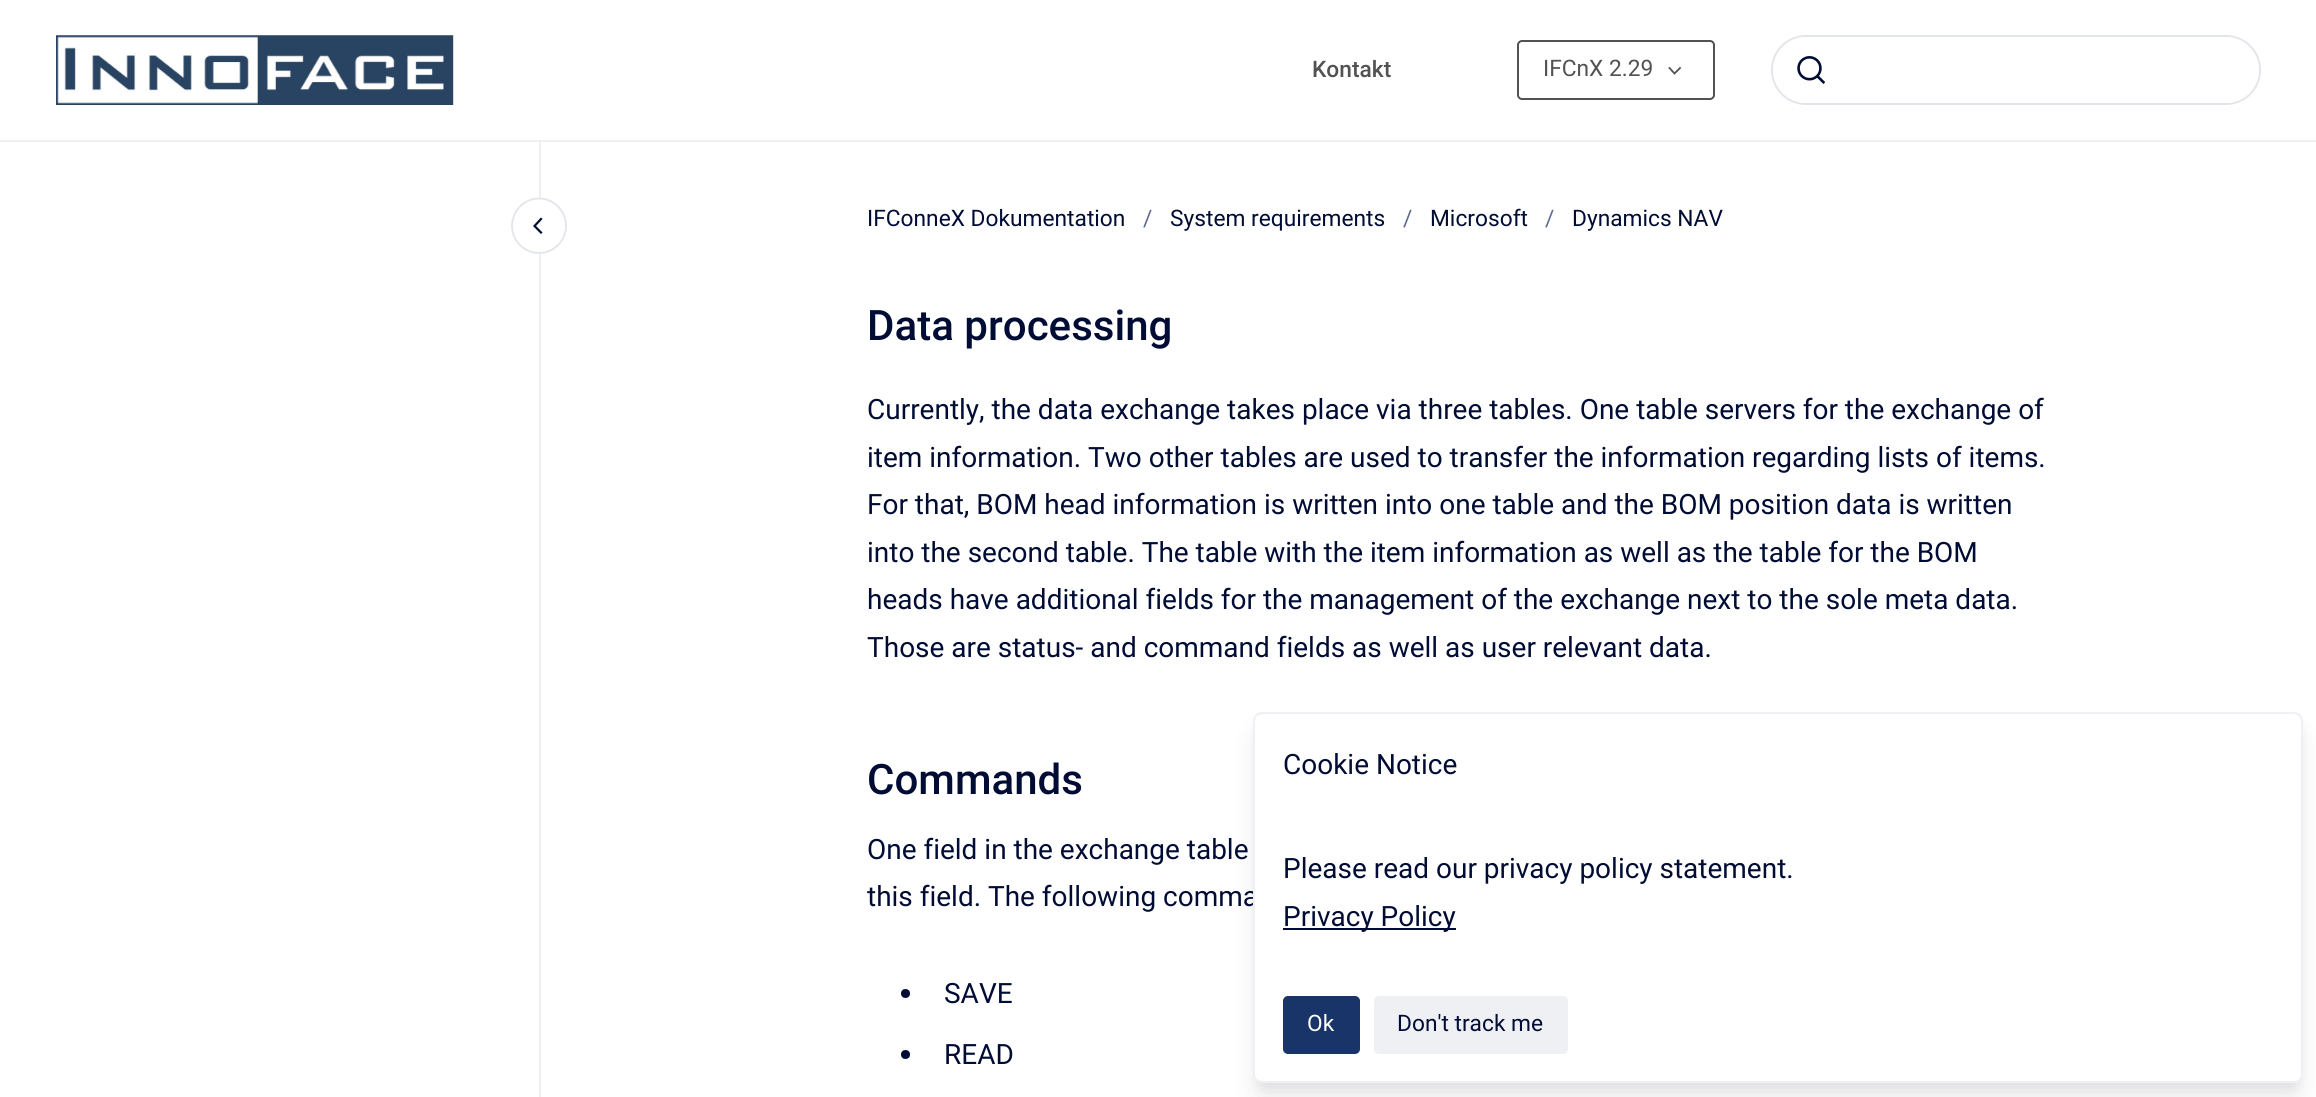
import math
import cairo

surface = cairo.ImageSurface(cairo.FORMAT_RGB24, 2316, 1097)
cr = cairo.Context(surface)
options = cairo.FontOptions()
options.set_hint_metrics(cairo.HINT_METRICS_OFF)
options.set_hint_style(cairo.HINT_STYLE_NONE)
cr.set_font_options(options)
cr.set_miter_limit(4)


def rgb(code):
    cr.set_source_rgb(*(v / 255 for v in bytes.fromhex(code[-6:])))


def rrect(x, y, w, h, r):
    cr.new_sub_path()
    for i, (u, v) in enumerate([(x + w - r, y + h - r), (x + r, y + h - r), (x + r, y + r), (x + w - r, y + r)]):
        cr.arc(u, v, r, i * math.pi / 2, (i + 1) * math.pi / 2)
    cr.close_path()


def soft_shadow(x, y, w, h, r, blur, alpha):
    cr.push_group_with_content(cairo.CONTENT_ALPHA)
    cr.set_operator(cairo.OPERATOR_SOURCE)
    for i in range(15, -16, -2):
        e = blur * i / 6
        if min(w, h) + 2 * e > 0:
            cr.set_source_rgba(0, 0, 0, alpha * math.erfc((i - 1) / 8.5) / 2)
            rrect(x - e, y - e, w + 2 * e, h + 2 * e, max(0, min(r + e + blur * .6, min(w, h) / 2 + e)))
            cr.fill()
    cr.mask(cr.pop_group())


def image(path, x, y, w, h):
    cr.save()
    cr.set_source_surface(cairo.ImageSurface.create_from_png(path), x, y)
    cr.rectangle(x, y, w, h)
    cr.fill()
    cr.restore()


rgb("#ffffff")
cr.paint()
rgb("#eff0f4")
cr.rectangle(0, 140, 2316, 2)
cr.fill()
image("img/1.png", 56, 35, 398, 70)
rrect(1518, 41, 196, 58, 4)
rgb("#525252")
cr.stroke()
cr.new_path()
cr.move_to(1680, 68)
cr.line_to(1674.5, 73.5)
cr.line_to(1669.5, 68)
cr.set_line_width(1.8)
cr.set_line_cap(cairo.LINE_CAP_SQUARE)
cr.stroke()
rrect(1772, 36, 488, 68, 34)
rgb("#e2e5eb")
cr.set_line_width(2)
cr.set_line_cap(cairo.LINE_CAP_BUTT)
cr.stroke()
rgb("#ffffff")
rrect(1773, 37, 486, 66, 33)
cr.fill()
image("img/2.png", 1797, 56, 29, 28)
rgb("#eff0f4")
cr.rectangle(539, 142, 2, 955)
cr.fill()
rgb("#ffffff")
cr.new_path()
cr.move_to(539, 254)
cr.curve_to(524, 254, 511, 241, 511, 226)
cr.curve_to(511, 210, 524, 198, 539, 198)
cr.curve_to(554, 198, 567, 210, 567, 226)
cr.curve_to(567, 241, 554, 254, 539, 254)
cr.close_path()
cr.fill()
cr.new_path()
cr.move_to(539, 253)
cr.curve_to(524, 253, 512, 240.5, 512, 226)
cr.curve_to(512, 211, 524, 198.5, 539, 198.5)
cr.curve_to(554, 198.5, 566, 211, 566, 226)
cr.curve_to(566, 240.5, 554, 253, 539, 253)
cr.close_path()
rgb("#e2e5eb")
cr.set_line_width(1.8)
cr.stroke()
cr.new_path()
cr.move_to(541, 232.5)
cr.line_to(534.5, 226)
cr.line_to(541, 219)
rgb("#000c34")
cr.set_line_width(2.2)
cr.set_line_cap(cairo.LINE_CAP_SQUARE)
cr.stroke()
cr.arc(905.5, 993.5, 4.5, 0, 2 * math.pi)
cr.fill()
cr.arc(905.5, 1054.5, 4.5, 0, 2 * math.pi)
cr.fill()
rgb("#000000")
soft_shadow(1257, 723, 1043, 364, 5, 5, 0.05)
soft_shadow(1258, 735, 1040, 361, 4, 13, 0.1)
cr.select_font_face("Roboto Medium")
cr.set_font_size(22.75)
rgb("#525252")
cr.move_to(1312, 77)
cr.show_text("Kontakt")
cr.select_font_face("Roboto")
cr.move_to(1543, 76)
cr.show_text("IFCnX 2.29")
rgb("#000c34")
cr.move_to(867, 226)
cr.show_text("IFConneX Dokumentation")
rgb("#5d6b8f")
cr.move_to(1143, 226)
cr.show_text("/")
rgb("#000c34")
cr.move_to(1170, 226)
cr.show_text("System requirements")
rgb("#5d6b8f")
cr.move_to(1403, 226)
cr.show_text("/")
rgb("#000c34")
cr.move_to(1430, 226)
cr.show_text("Microsoft")
rgb("#5d6b8f")
cr.move_to(1545, 226)
cr.show_text("/")
rgb("#000c34")
cr.move_to(1572, 226)
cr.show_text("Dynamics NAV")
cr.select_font_face("Roboto Medium")
cr.set_font_size(42)
cr.move_to(867, 340)
cr.show_text("Data processing")
cr.select_font_face("Roboto")
cr.set_font_size(28)
for x, y, s in [
    (867, 419, "Currently, the data exchange takes place via three tables. One table servers for the exchange of"),
    (867, 467, "item information. Two other tables are used to transfer the information regarding lists of items."),
    (867, 514, "For that, BOM head information is written into one table and the BOM position data is written"),
    (867, 562, "into the second table. The table with the item information as well as the table for the BOM"),
    (867, 609, "heads have additional fields for the management of the exchange next to the sole meta data."),
    (867, 657, "Those are status- and command fields as well as user relevant data."),
]:
    cr.move_to(x, y)
    cr.show_text(s)
cr.select_font_face("Roboto Medium")
cr.set_font_size(42)
cr.move_to(867, 794)
cr.show_text("Commands")
cr.select_font_face("Roboto")
cr.set_font_size(28)
for x, y, s in [
    (867, 859, "One field in the exchange table"),
    (867, 906, "this field. The following comma"),
    (944, 1003, "SAVE"),
    (944, 1064, "READ"),
]:
    cr.move_to(x, y)
    cr.show_text(s)
rgb("#ffffff")
rrect(1254, 713, 1048, 369, 8)
cr.fill_preserve()
rgb("#eff0f4")
cr.set_line_width(2)
cr.set_line_cap(cairo.LINE_CAP_BUTT)
cr.stroke()
rgb("#000c34")
cr.move_to(1283, 774)
cr.show_text("Cookie Notice")
cr.move_to(1283, 878)
cr.show_text("Please read our privacy policy statement.")
cr.rectangle(1283, 928, 173, 2)
cr.fill()
cr.move_to(1283, 926)
cr.show_text("Privacy Policy")
rgb("#193468")
rrect(1283, 996, 77, 58, 5)
cr.fill()
cr.set_font_size(22.75)
rgb("#ffffff")
cr.move_to(1307, 1031)
cr.show_text("Ok")
rgb("#eff0f4")
rrect(1374, 996, 194, 58, 5)
cr.fill()
rgb("#000c34")
cr.move_to(1397, 1031)
cr.show_text("Don't track me")
surface.write_to_png("page.png")
